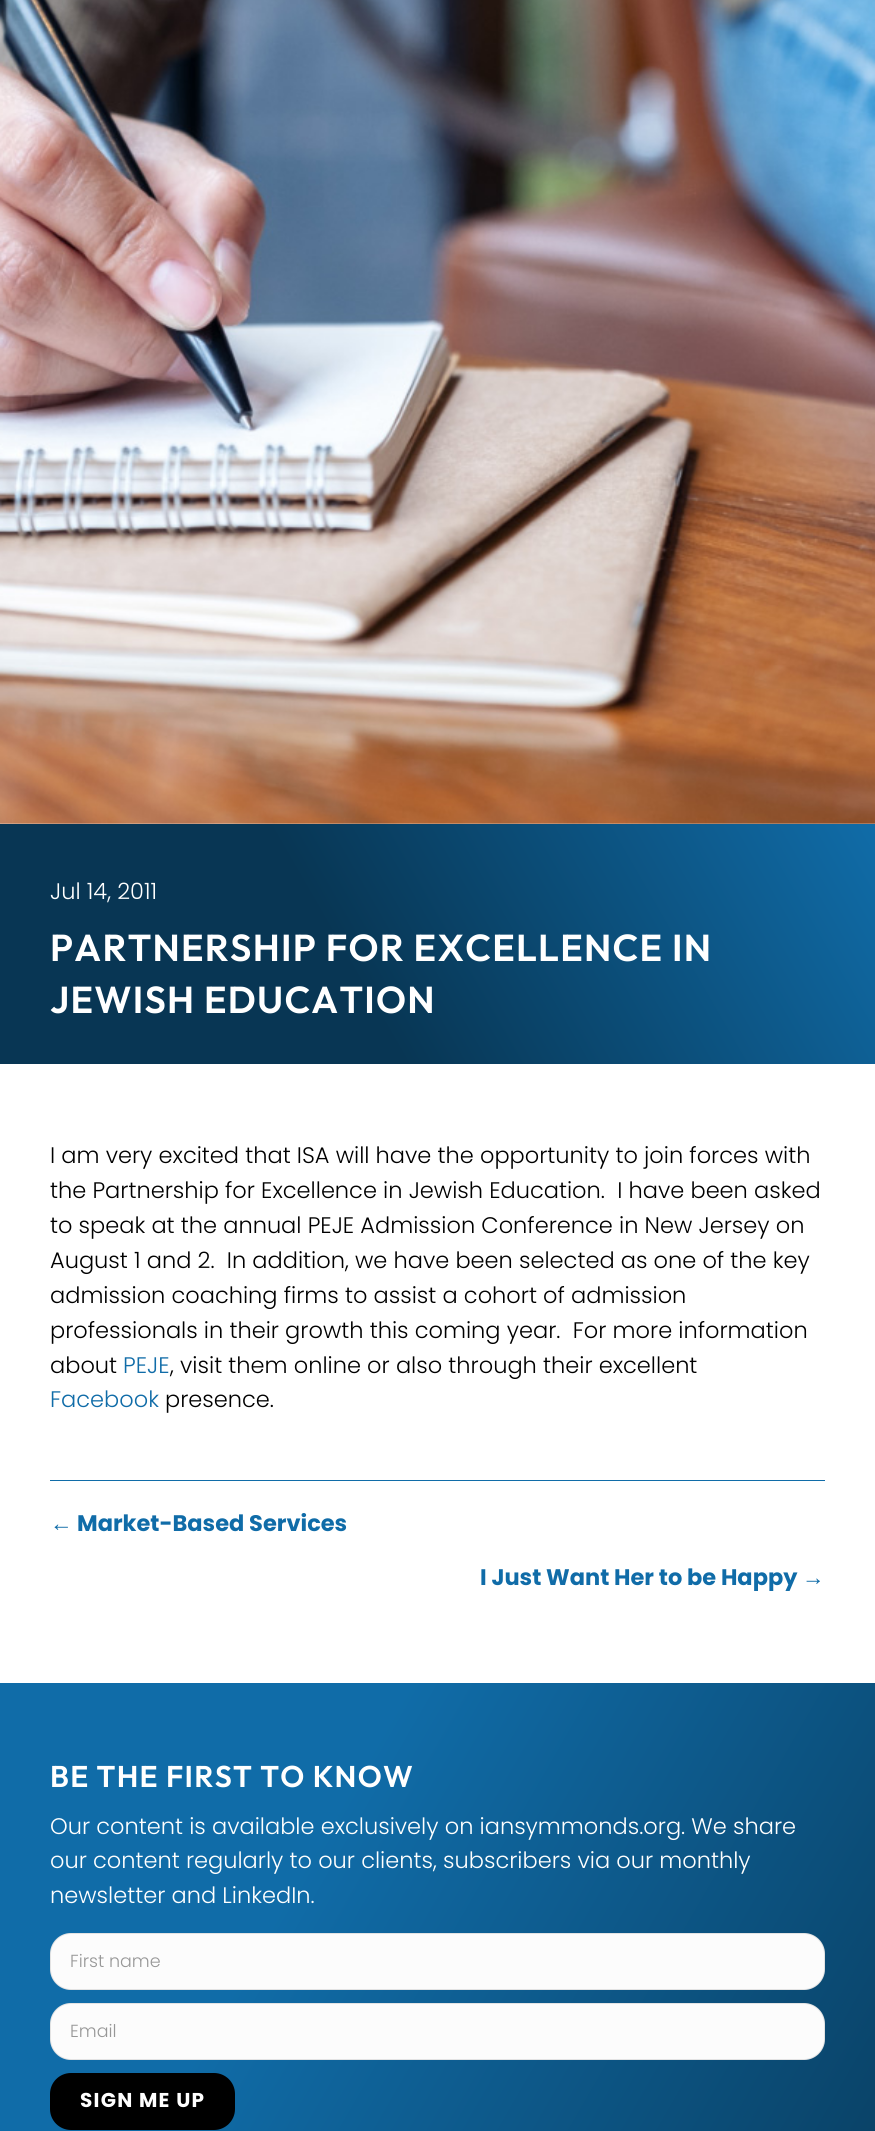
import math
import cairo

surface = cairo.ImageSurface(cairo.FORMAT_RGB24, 875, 2131)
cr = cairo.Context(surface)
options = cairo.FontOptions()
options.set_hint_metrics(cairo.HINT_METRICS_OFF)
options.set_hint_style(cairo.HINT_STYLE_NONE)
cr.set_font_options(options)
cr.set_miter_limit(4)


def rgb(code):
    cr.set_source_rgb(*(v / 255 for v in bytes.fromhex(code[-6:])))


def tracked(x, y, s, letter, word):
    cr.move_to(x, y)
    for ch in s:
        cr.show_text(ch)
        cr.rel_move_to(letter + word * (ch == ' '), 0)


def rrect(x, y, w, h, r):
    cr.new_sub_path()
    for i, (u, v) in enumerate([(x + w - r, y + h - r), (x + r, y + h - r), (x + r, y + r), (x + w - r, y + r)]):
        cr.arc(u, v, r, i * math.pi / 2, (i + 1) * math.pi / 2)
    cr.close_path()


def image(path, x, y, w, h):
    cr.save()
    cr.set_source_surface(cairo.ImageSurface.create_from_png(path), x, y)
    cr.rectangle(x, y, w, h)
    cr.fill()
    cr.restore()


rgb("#ffffff")
cr.paint()
image("img/1.png", 0, 0, 875, 824)
gradient = cairo.LinearGradient(818, 724, 57, 1163)
gradient.add_color_stop_rgba(0, 0.063, 0.424, 0.659, 1)
gradient.add_color_stop_rgba(0.6, 0.031, 0.212, 0.329, 1)
cr.set_source(gradient)
cr.rectangle(0, 824, 875, 240)
cr.fill()
rgb("#106ca8")
cr.rectangle(50, 1480, 775, 1)
cr.fill()
gradient = cairo.LinearGradient(-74, 1810, 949, 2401)
gradient.add_color_stop_rgba(0.3, 0.063, 0.424, 0.659, 1)
gradient.add_color_stop_rgba(1, 0.031, 0.212, 0.329, 1)
cr.set_source(gradient)
cr.rectangle(0, 1683, 875, 448)
cr.fill()
rgb("#fcfcfc")
rrect(50, 1933, 775, 57, 21)
cr.fill()
rrect(50.5, 1933.5, 774, 56, 20.5)
cr.set_source_rgba(0, 0, 0, 0.1)
cr.set_line_width(1)
cr.stroke()
rgb("#fcfcfc")
rrect(50, 2003, 775, 57, 21)
cr.fill()
rrect(50.5, 2003.5, 774, 56, 20.5)
cr.set_source_rgba(0, 0, 0, 0.1)
cr.stroke()
rgb("#000000")
rrect(50, 2073, 185, 57, 21)
cr.fill()
cr.select_font_face("Poppins Light")
cr.set_font_size(22.5)
rgb("#ffffff")
cr.move_to(50, 899)
cr.show_text("Jul 14, 2011")
cr.select_font_face("Outfit SemiBold")
cr.set_font_size(37.5)
tracked(50, 961, "PARTNERSHIP FOR EXCELLENCE IN", 1.25, 0)
tracked(50, 1013, "JEWISH EDUCATION", 1.25, 0)
cr.select_font_face("Poppins Light")
cr.set_font_size(22.5)
rgb("#000000")
for x, y, s in [
    (50, 1163, "I am very excited that ISA will have the opportunity to join forces with"),
    (50, 1198, "the Partnership for Excellence in Jewish Education.  I have been asked"),
    (50, 1233, "to speak at the annual PEJE Admission Conference in New Jersey on"),
    (50, 1268, "August 1 and 2.  In addition, we have been selected as one of the key"),
    (50, 1303, "admission coaching firms to assist a cohort of admission"),
    (50, 1338, "professionals in their growth this coming year.  For more information"),
    (50, 1373, "about"),
]:
    cr.move_to(x, y)
    cr.show_text(s)
rgb("#106ca8")
cr.move_to(123, 1373)
cr.show_text("PEJE")
rgb("#000000")
cr.move_to(170, 1373)
cr.show_text(", visit them online or also through their excellent")
rgb("#106ca8")
cr.move_to(50, 1407)
cr.show_text("Facebook")
rgb("#000000")
cr.move_to(165, 1407)
cr.show_text("presence.")
cr.select_font_face("Liberation Sans", cairo.FONT_SLANT_NORMAL, cairo.FONT_WEIGHT_BOLD)
rgb("#106ca8")
cr.move_to(50, 1531)
cr.show_text("←")
cr.select_font_face("Poppins", cairo.FONT_SLANT_NORMAL, cairo.FONT_WEIGHT_BOLD)
cr.move_to(77, 1531)
cr.show_text("Market-Based Services")
cr.move_to(480, 1585)
cr.show_text("I Just Want Her to be Happy")
cr.select_font_face("Liberation Sans", cairo.FONT_SLANT_NORMAL, cairo.FONT_WEIGHT_BOLD)
cr.move_to(802, 1585)
cr.show_text("→")
cr.select_font_face("Outfit SemiBold")
cr.set_font_size(30)
rgb("#ffffff")
tracked(50, 1787, "BE THE FIRST TO KNOW", 1.25, 0)
cr.select_font_face("Poppins Light")
cr.set_font_size(22.5)
for x, y, s in [
    (50, 1834, "Our content is available exclusively on iansymmonds.org. We share"),
    (50, 1868, "our content regularly to our clients, subscribers via our monthly"),
    (50, 1903, "newsletter and LinkedIn."),
]:
    cr.move_to(x, y)
    cr.show_text(s)
cr.set_font_size(17.5)
rgb("#979797")
cr.move_to(70, 1967)
cr.show_text("First name")
cr.move_to(70, 2037)
cr.show_text("Email")
cr.select_font_face("Poppins", cairo.FONT_SLANT_NORMAL, cairo.FONT_WEIGHT_BOLD)
cr.set_font_size(20)
rgb("#ffffff")
tracked(80, 2107, "SIGN ME UP", 1.25, 0)
surface.write_to_png("page.png")
